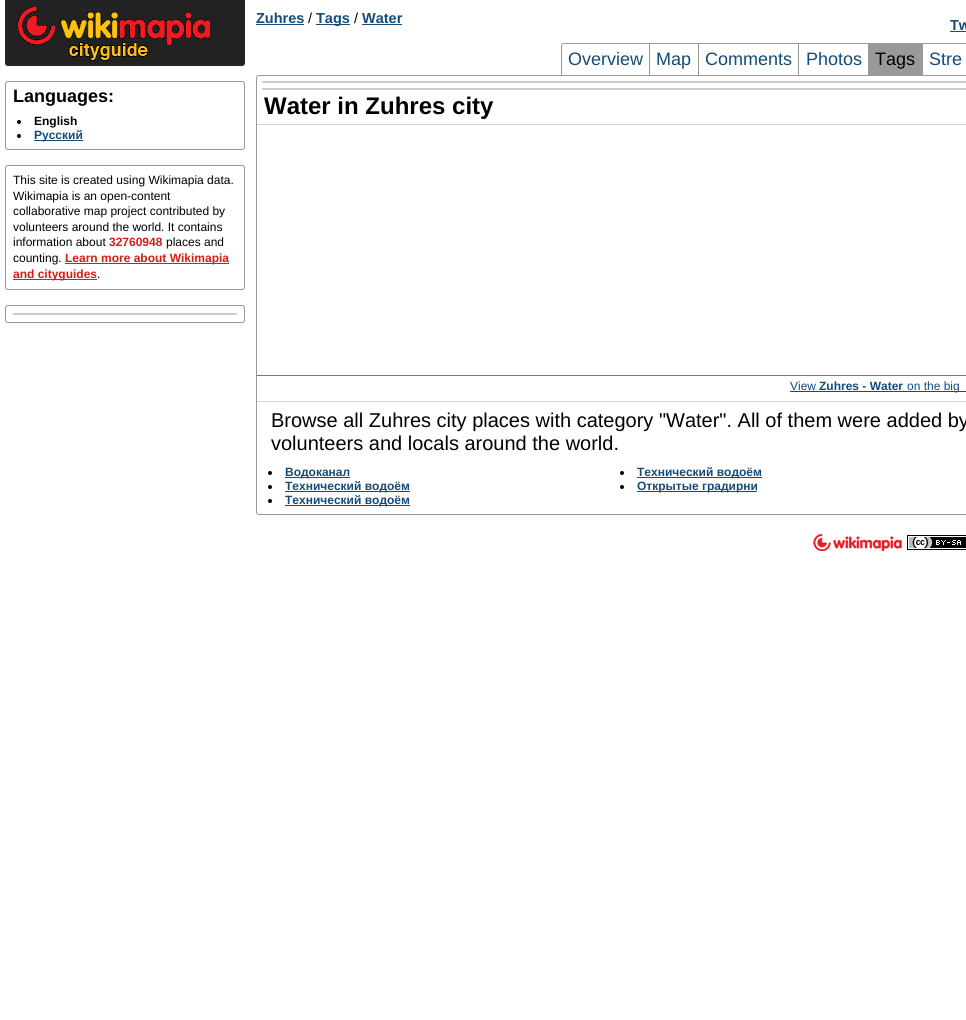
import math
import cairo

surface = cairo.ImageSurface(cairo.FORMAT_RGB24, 966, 1020)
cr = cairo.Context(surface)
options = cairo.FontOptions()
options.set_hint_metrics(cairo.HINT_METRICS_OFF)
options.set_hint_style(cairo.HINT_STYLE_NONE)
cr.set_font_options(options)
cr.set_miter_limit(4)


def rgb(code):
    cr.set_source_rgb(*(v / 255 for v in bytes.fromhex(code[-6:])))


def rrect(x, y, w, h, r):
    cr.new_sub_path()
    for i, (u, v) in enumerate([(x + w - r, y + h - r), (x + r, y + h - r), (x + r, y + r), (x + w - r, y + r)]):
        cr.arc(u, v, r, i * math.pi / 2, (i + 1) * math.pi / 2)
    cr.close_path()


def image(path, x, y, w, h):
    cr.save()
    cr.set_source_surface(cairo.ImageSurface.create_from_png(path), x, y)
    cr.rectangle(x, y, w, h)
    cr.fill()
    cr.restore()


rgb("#ffffff")
cr.paint()
for x, y, w, h, color in [
    (256, 24, 48, 1, "#144b78"),
    (316, 24, 34, 1, "#144b78"),
    (362, 24, 40, 1, "#144b78"),
    (950, 31, 16, 1, "#144b78"),
]:
    rgb(color)
    cr.rectangle(x, y, w, h)
    cr.fill()
cr.new_path()
cr.move_to(564, 43.5)
cr.line_to(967, 43.5)
cr.curve_to(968.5, 43.5, 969.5, 44.5, 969.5, 46)
cr.line_to(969.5, 75.5)
cr.line_to(561.5, 75.5)
cr.line_to(561.5, 46)
cr.curve_to(561.5, 44.5, 562.5, 43.5, 564, 43.5)
cr.close_path()
rgb("#999999")
cr.set_line_width(1)
cr.stroke()
for x, y, w, h, color in [
    (649, 44, 1, 31, "#999999"),
    (698, 44, 1, 31, "#999999"),
    (798, 44, 1, 31, "#999999"),
    (868, 44, 55, 31, "#999999"),
]:
    rgb(color)
    cr.rectangle(x, y, w, h)
    cr.fill()
rgb("#222222")
cr.new_path()
cr.move_to(5.5, 0.5)
cr.line_to(244.5, 0.5)
cr.line_to(244.5, 63)
cr.curve_to(244.5, 64.5, 243.5, 65.5, 242, 65.5)
cr.line_to(8, 65.5)
cr.curve_to(6.5, 65.5, 5.5, 64.5, 5.5, 63)
cr.close_path()
cr.fill_preserve()
cr.stroke()
image("img/1.png", 18, 7, 192, 54)
rrect(5.5, 81.5, 239, 68, 2.5)
rgb("#999999")
cr.stroke()
rgb("#000000")
cr.arc(19, 122, 2, 0, 2 * math.pi)
cr.fill()
cr.arc(19, 136, 2, 0, 2 * math.pi)
cr.fill()
rgb("#144b78")
cr.rectangle(34, 140, 49, 1)
cr.fill()
rrect(5.5, 165.5, 239, 124, 2.5)
rgb("#999999")
cr.stroke()
rgb("#d71a1a")
cr.rectangle(65, 263, 164, 1)
cr.fill()
cr.rectangle(13, 279, 84, 1)
cr.fill()
rrect(5.5, 305.5, 239, 17, 2.5)
rgb("#999999")
cr.stroke()
rgb("#cccccc")
cr.rectangle(13, 313, 224, 2)
cr.fill()
cr.new_path()
cr.move_to(259, 75.5)
cr.line_to(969.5, 75.5)
cr.line_to(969.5, 512)
cr.curve_to(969.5, 513.5, 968.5, 514.5, 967, 514.5)
cr.line_to(259, 514.5)
cr.curve_to(257.5, 514.5, 256.5, 513.5, 256.5, 512)
cr.line_to(256.5, 78)
cr.curve_to(256.5, 76.5, 257.5, 75.5, 259, 75.5)
cr.close_path()
rgb("#999999")
cr.stroke()
for x, y, w, h, color in [
    (262, 81, 704, 2, "#cccccc"),
    (262, 88, 704, 2, "#cccccc"),
    (257, 124, 709, 1, "#d5d5d5"),
    (257, 375, 709, 1, "#777777"),
    (790, 391, 176, 1, "#144b78"),
    (257, 401, 709, 1, "#d5d5d5"),
]:
    rgb(color)
    cr.rectangle(x, y, w, h)
    cr.fill()
rgb("#000000")
cr.arc(270, 473, 2, 0, 2 * math.pi)
cr.fill()
rgb("#144b78")
cr.rectangle(285, 477, 65, 1)
cr.fill()
rgb("#000000")
cr.arc(622, 473, 2, 0, 2 * math.pi)
cr.fill()
rgb("#144b78")
cr.rectangle(637, 477, 125, 1)
cr.fill()
rgb("#000000")
cr.arc(270, 487, 2, 0, 2 * math.pi)
cr.fill()
rgb("#144b78")
cr.rectangle(285, 491, 125, 1)
cr.fill()
rgb("#000000")
cr.arc(622, 487, 2, 0, 2 * math.pi)
cr.fill()
rgb("#144b78")
cr.rectangle(637, 491, 120, 1)
cr.fill()
rgb("#000000")
cr.arc(270, 501, 2, 0, 2 * math.pi)
cr.fill()
rgb("#144b78")
cr.rectangle(285, 505, 125, 1)
cr.fill()
image("img/2.png", 813, 534, 89, 17)
image("img/3.png", 907, 535, 59, 15)
cr.select_font_face("Liberation Sans", cairo.FONT_SLANT_NORMAL, cairo.FONT_WEIGHT_BOLD)
cr.set_font_size(14.5)
cr.move_to(256, 23)
cr.show_text("Zuhres")
cr.select_font_face("Liberation Sans")
rgb("#000000")
cr.move_to(308, 23)
cr.show_text("/")
cr.select_font_face("Liberation Sans", cairo.FONT_SLANT_NORMAL, cairo.FONT_WEIGHT_BOLD)
rgb("#144b78")
cr.move_to(316, 23)
cr.show_text("Tags")
cr.select_font_face("Liberation Sans")
rgb("#000000")
cr.move_to(354, 23)
cr.show_text("/")
cr.select_font_face("Liberation Sans", cairo.FONT_SLANT_NORMAL, cairo.FONT_WEIGHT_BOLD)
rgb("#144b78")
cr.move_to(362, 23)
cr.show_text("Water")
cr.move_to(950, 30)
cr.show_text("Tw")
cr.select_font_face("Liberation Sans")
cr.set_font_size(18)
for x, y, s in [
    (568, 65, "Overview"),
    (656, 65, "Map"),
    (705, 65, "Comments"),
    (806, 65, "Photos"),
]:
    cr.move_to(x, y)
    cr.show_text(s)
rgb("#000000")
cr.move_to(875, 65)
cr.show_text("Tags")
rgb("#144b78")
cr.move_to(929, 65)
cr.show_text("Stre")
cr.select_font_face("Liberation Sans", cairo.FONT_SLANT_NORMAL, cairo.FONT_WEIGHT_BOLD)
rgb("#000000")
cr.move_to(13, 102)
cr.show_text("Languages:")
cr.set_font_size(12)
cr.move_to(34, 125)
cr.show_text("English")
rgb("#144b78")
cr.move_to(34, 139)
cr.show_text("Русский")
cr.select_font_face("Liberation Sans")
rgb("#000000")
for x, y, s in [
    (13, 184, "This site is created using Wikimapia data."),
    (13, 200, "Wikimapia is an open-content"),
    (13, 215, "collaborative map project contributed by"),
    (13, 231, "volunteers around the world. It contains"),
    (13, 246, "information about"),
]:
    cr.move_to(x, y)
    cr.show_text(s)
cr.select_font_face("Liberation Sans", cairo.FONT_SLANT_NORMAL, cairo.FONT_WEIGHT_BOLD)
rgb("#d71a1a")
cr.move_to(109, 246)
cr.show_text("32760948")
cr.select_font_face("Liberation Sans")
rgb("#000000")
cr.move_to(166, 246)
cr.show_text("places and")
cr.move_to(13, 262)
cr.show_text("counting.")
cr.select_font_face("Liberation Sans", cairo.FONT_SLANT_NORMAL, cairo.FONT_WEIGHT_BOLD)
rgb("#d71a1a")
cr.move_to(65, 262)
cr.show_text("Learn more about Wikimapia")
cr.move_to(13, 278)
cr.show_text("and cityguides")
cr.select_font_face("Liberation Sans")
rgb("#000000")
cr.move_to(97, 278)
cr.show_text(".")
cr.select_font_face("Liberation Sans", cairo.FONT_SLANT_NORMAL, cairo.FONT_WEIGHT_BOLD)
cr.set_font_size(24)
cr.move_to(264, 114)
cr.show_text("Water in Zuhres city")
cr.select_font_face("Liberation Sans")
cr.set_font_size(12)
rgb("#144b78")
cr.move_to(790, 390)
cr.show_text("View")
cr.select_font_face("Liberation Sans", cairo.FONT_SLANT_NORMAL, cairo.FONT_WEIGHT_BOLD)
cr.move_to(819, 390)
cr.show_text("Zuhres - Water")
cr.select_font_face("Liberation Sans")
cr.move_to(907, 390)
cr.show_text("on the big")
cr.set_font_size(20)
rgb("#000000")
cr.move_to(271, 427)
cr.show_text("Browse all Zuhres city places with category \"Water\". All of them were added by")
cr.move_to(271, 450)
cr.show_text("volunteers and locals around the world.")
cr.select_font_face("Liberation Sans", cairo.FONT_SLANT_NORMAL, cairo.FONT_WEIGHT_BOLD)
cr.set_font_size(12)
rgb("#144b78")
for x, y, s in [
    (285, 476, "Водоканал"),
    (637, 476, "Технический водоём"),
    (285, 490, "Технический водоём"),
    (637, 490, "Открытые градирни"),
    (285, 504, "Технический водоём"),
]:
    cr.move_to(x, y)
    cr.show_text(s)
surface.write_to_png("page.png")
